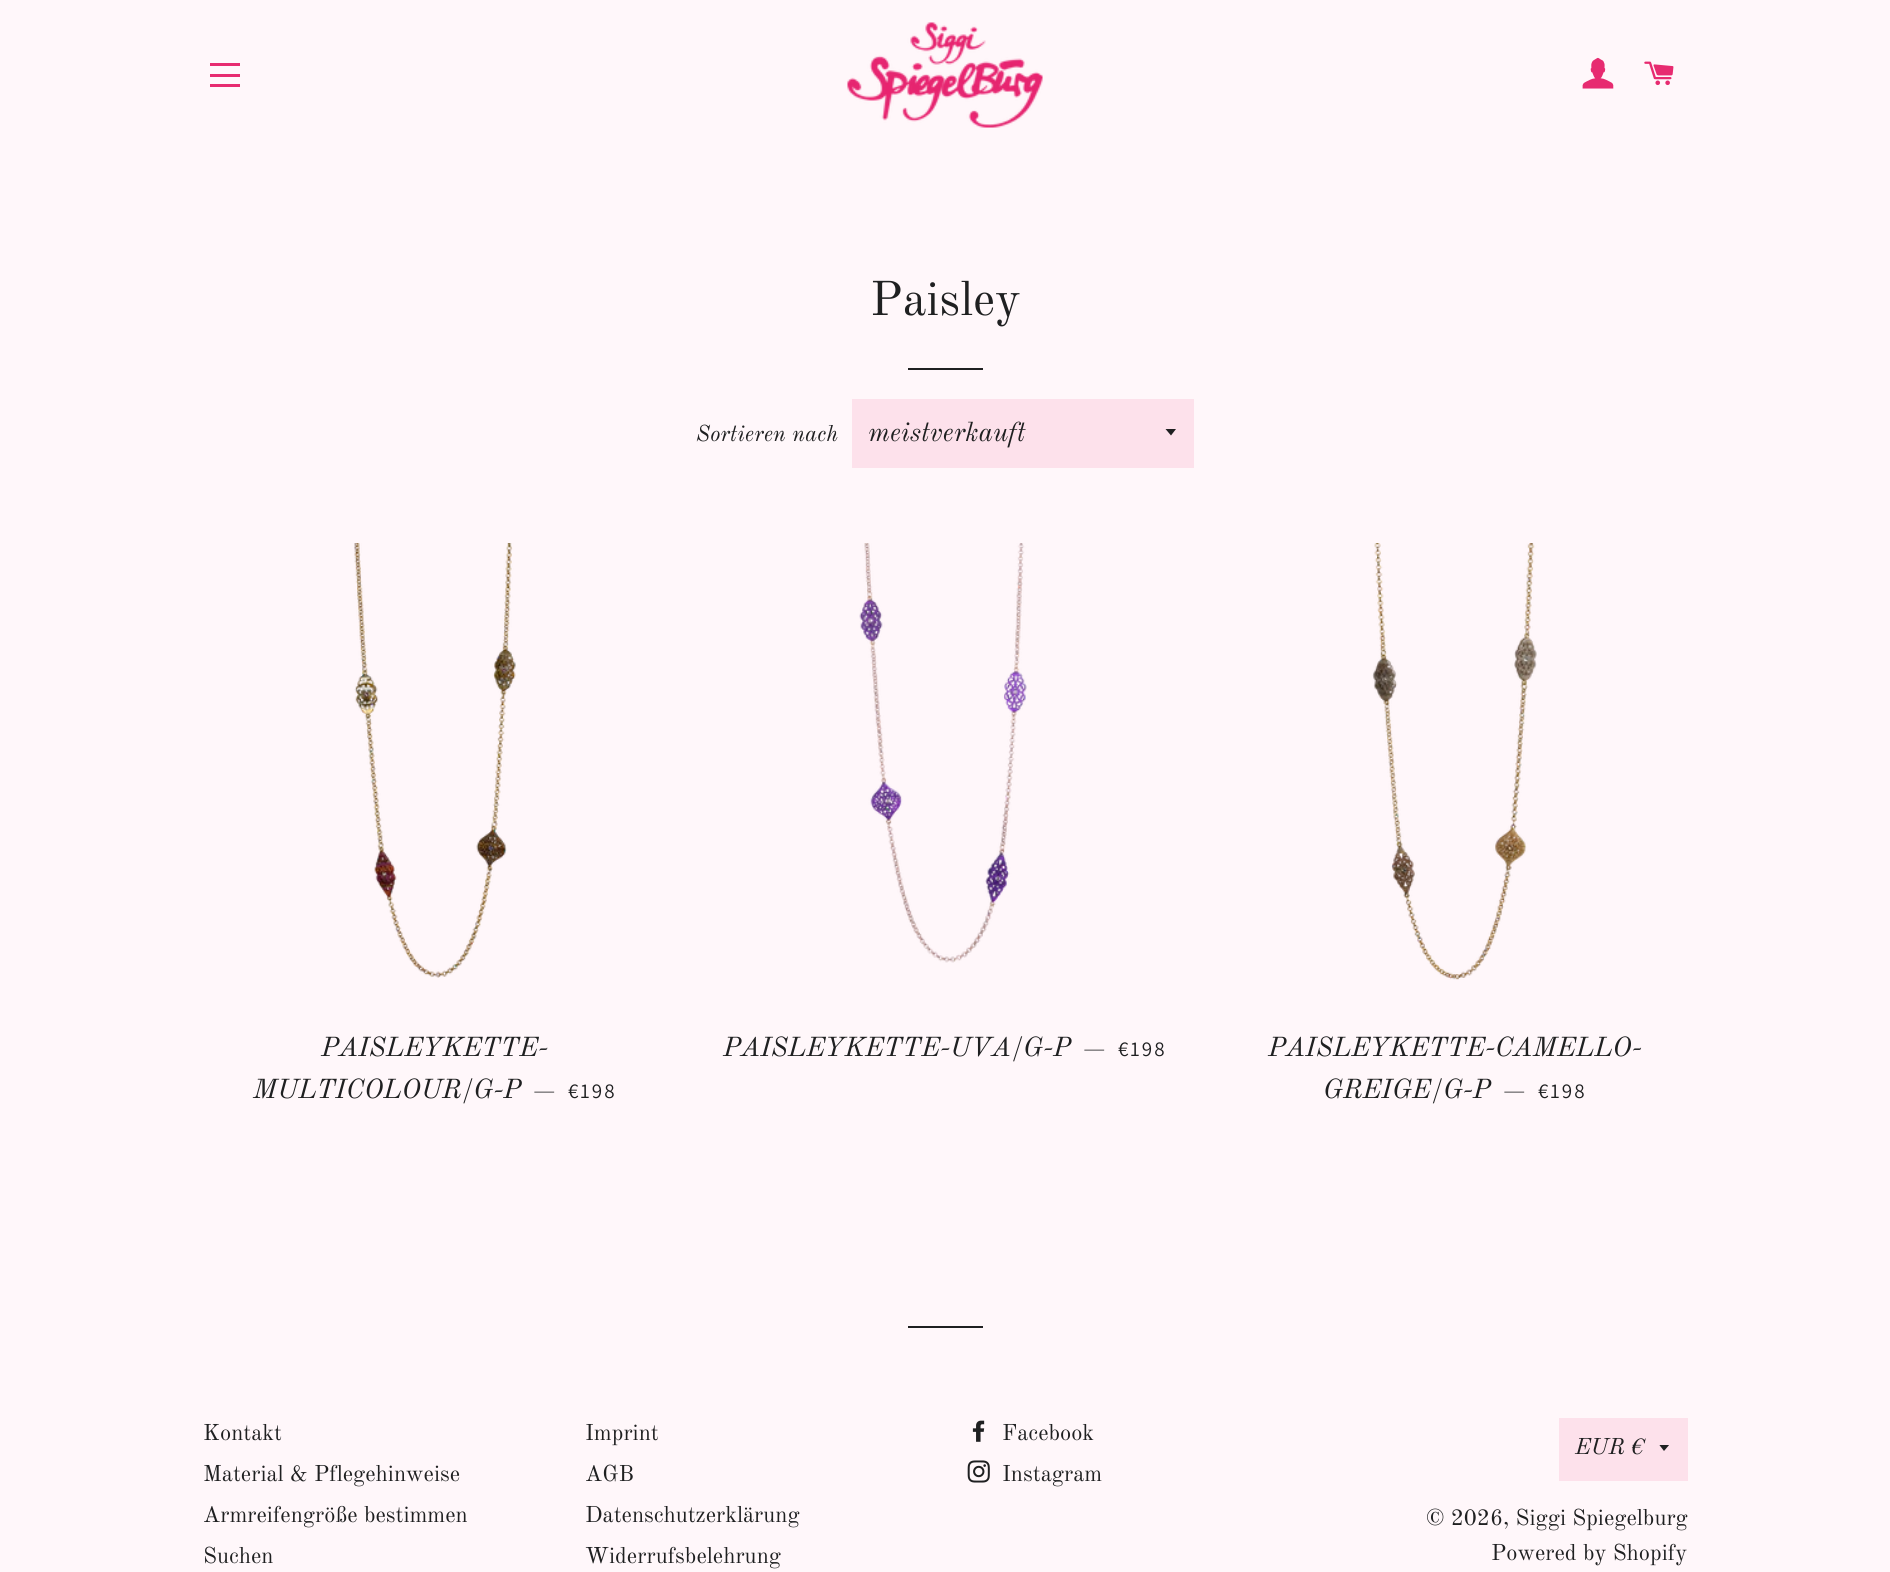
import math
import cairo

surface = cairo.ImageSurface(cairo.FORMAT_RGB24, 1890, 1572)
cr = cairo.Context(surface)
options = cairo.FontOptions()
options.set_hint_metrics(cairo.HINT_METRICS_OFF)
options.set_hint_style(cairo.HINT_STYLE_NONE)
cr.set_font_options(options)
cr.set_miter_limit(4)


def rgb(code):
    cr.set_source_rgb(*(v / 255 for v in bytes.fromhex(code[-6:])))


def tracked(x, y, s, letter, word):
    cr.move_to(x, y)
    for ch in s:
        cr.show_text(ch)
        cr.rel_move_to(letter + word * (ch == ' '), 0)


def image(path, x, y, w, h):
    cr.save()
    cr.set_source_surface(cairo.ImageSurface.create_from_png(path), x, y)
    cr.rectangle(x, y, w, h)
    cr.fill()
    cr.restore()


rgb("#fff7fa")
cr.paint()
for x, y, w, h, color in [
    (210, 63, 30, 3, "#e72b70"),
    (210, 74, 30, 3, "#e72b70"),
    (210, 84, 30, 3, "#e72b70"),
]:
    rgb(color)
    cr.rectangle(x, y, w, h)
    cr.fill()
image("img/1.png", 847, 22, 196, 106)
image("img/2.png", 1582, 57, 32, 32)
image("img/3.png", 1644, 61, 30, 25)
rgb("#1f2021")
cr.rectangle(908, 368, 75, 2)
cr.fill()
rgb("#fde1eb")
cr.rectangle(852, 399, 342, 69)
cr.fill()
rgb("#1f2021")
cr.new_path()
cr.move_to(1165.5, 429)
cr.line_to(1171, 435.5)
cr.line_to(1176, 429)
cr.close_path()
cr.fill()
image("img/4.png", 354, 543, 162, 435)
image("img/5.png", 859, 543, 168, 420)
image("img/6.png", 1372, 543, 165, 437)
cr.rectangle(908, 1326, 75, 2)
cr.fill()
image("img/7.png", 972, 1420, 13, 22)
image("img/8.png", 967, 1460, 23, 23)
rgb("#fde1eb")
cr.rectangle(1559, 1418, 129, 63)
cr.fill()
cr.save()
cr.rectangle(1659, 1445, 12, 7)
cr.clip()
rgb("#1f2021")
cr.new_path()
cr.move_to(1659, 1444.5)
cr.line_to(1664, 1451)
cr.line_to(1669.5, 1444.5)
cr.close_path()
cr.fill()
cr.restore()
cr.select_font_face("Old Standard TT")
cr.set_font_size(48)
rgb("#1f2021")
cr.move_to(870, 315)
cr.show_text("Paisley")
cr.select_font_face("Old Standard TT", cairo.FONT_SLANT_ITALIC)
cr.set_font_size(22.5)
cr.move_to(696, 441)
cr.show_text("Sortieren nach")
cr.set_font_size(27)
for x, y, s in [
    (868, 441, "meistverkauft"),
    (321, 1056, "PAISLEYKETTE-"),
    (253, 1098, "MULTICOLOUR/G-P"),
]:
    cr.move_to(x, y)
    cr.show_text(s)
cr.select_font_face("Old Standard TT")
cr.set_font_size(22.5)
cr.move_to(533, 1098)
cr.show_text("—")
cr.select_font_face("Assistant")
cr.set_font_size(21)
tracked(568, 1098, "€198", 2, 0)
cr.select_font_face("Old Standard TT", cairo.FONT_SLANT_ITALIC)
cr.set_font_size(27)
cr.move_to(723, 1056)
cr.show_text("PAISLEYKETTE-UVA/G-P")
cr.select_font_face("Old Standard TT")
cr.set_font_size(22.5)
cr.move_to(1083, 1056)
cr.show_text("—")
cr.select_font_face("Assistant")
cr.set_font_size(21)
tracked(1118, 1056, "€198", 2, 0)
cr.select_font_face("Old Standard TT", cairo.FONT_SLANT_ITALIC)
cr.set_font_size(27)
cr.move_to(1268, 1056)
cr.show_text("PAISLEYKETTE-CAMELLO-")
cr.move_to(1323, 1098)
cr.show_text("GREIGE/G-P")
cr.select_font_face("Old Standard TT")
cr.set_font_size(22.5)
cr.move_to(1503, 1098)
cr.show_text("—")
cr.select_font_face("Assistant")
cr.set_font_size(21)
tracked(1538, 1098, "€198", 2, 0)
cr.select_font_face("Old Standard TT")
cr.set_font_size(22.5)
for x, y, s in [
    (203, 1440, "Kontakt"),
    (203, 1481, "Material & Pflegehinweise"),
    (203, 1522, "Armreifengröße bestimmen"),
    (203, 1563, "Suchen"),
    (585, 1440, "Imprint"),
    (585, 1481, "AGB"),
    (585, 1522, "Datenschutzerklärung"),
    (585, 1563, "Widerrufsbelehrung"),
    (1002, 1440, "Facebook"),
    (1002, 1481, "Instagram"),
]:
    cr.move_to(x, y)
    cr.show_text(s)
cr.select_font_face("Old Standard TT", cairo.FONT_SLANT_ITALIC)
cr.move_to(1575, 1454)
cr.show_text("EUR €")
cr.select_font_face("Old Standard TT")
cr.move_to(1426, 1525)
cr.show_text("© 2026, Siggi Spiegelburg")
cr.move_to(1491, 1560)
cr.show_text("Powered by Shopify")
surface.write_to_png("page.png")
